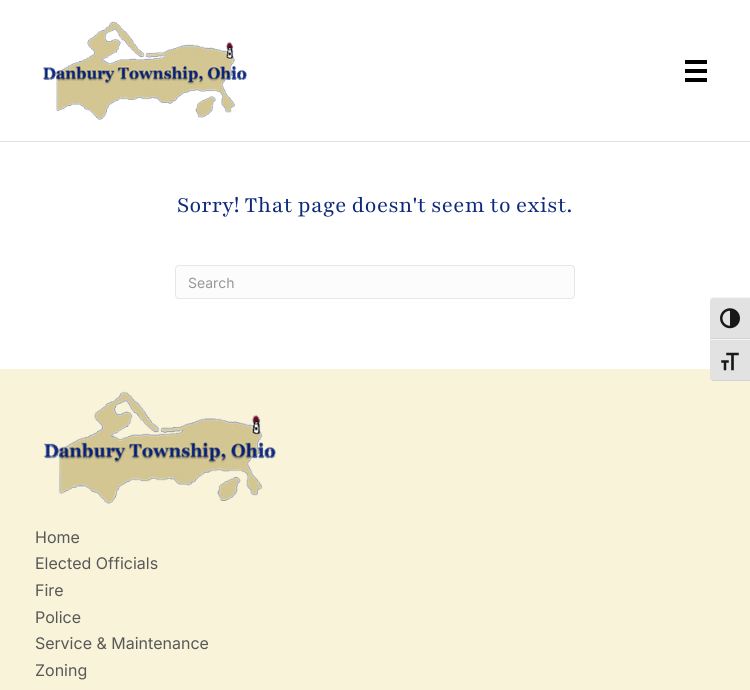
import math
import cairo

surface = cairo.ImageSurface(cairo.FORMAT_RGB24, 750, 690)
cr = cairo.Context(surface)
options = cairo.FontOptions()
options.set_hint_metrics(cairo.HINT_METRICS_OFF)
options.set_hint_style(cairo.HINT_STYLE_NONE)
cr.set_font_options(options)
cr.set_miter_limit(4)


def rgb(code):
    cr.set_source_rgb(*(v / 255 for v in bytes.fromhex(code[-6:])))


def rrect(x, y, w, h, r):
    cr.new_sub_path()
    for i, (u, v) in enumerate([(x + w - r, y + h - r), (x + r, y + h - r), (x + r, y + r), (x + w - r, y + r)]):
        cr.arc(u, v, r, i * math.pi / 2, (i + 1) * math.pi / 2)
    cr.close_path()


def image(path, x, y, w, h):
    cr.save()
    cr.set_source_surface(cairo.ImageSurface.create_from_png(path), x, y)
    cr.rectangle(x, y, w, h)
    cr.fill()
    cr.restore()


rgb("#ffffff")
cr.paint()
rgb("#e0e0e0")
cr.rectangle(0, 141, 750, 1)
cr.fill()
image("img/1.png", 43, 21, 204, 99)
for x, y, w, h, color in [
    (685, 60, 22, 4, "#000000"),
    (685, 69, 22, 4, "#000000"),
    (685, 78, 22, 4, "#000000"),
]:
    rgb(color)
    cr.rectangle(x, y, w, h)
    cr.fill()
rgb("#fcfcfc")
rrect(175.5, 265.5, 399, 33, 3.5)
cr.fill_preserve()
rgb("#e6e6e6")
cr.set_line_width(1)
cr.stroke()
rgb("#f9f3da")
cr.rectangle(0, 369, 750, 321)
cr.fill()
image("img/2.png", 44, 391, 232, 113)
rgb("#e2e2e2")
cr.new_path()
cr.move_to(714, 297)
cr.line_to(750, 297)
cr.line_to(750, 339)
cr.line_to(710, 339)
cr.line_to(710, 301)
cr.curve_to(710, 299, 712, 297, 714, 297)
cr.close_path()
cr.fill()
rgb("#f5f5f5")
cr.new_path()
cr.move_to(714, 298)
cr.line_to(750, 298)
cr.line_to(750, 297)
cr.line_to(714, 297)
cr.curve_to(712, 297, 710, 299, 710, 301)
cr.curve_to(710, 299, 712, 298, 714, 298)
cr.close_path()
cr.fill()
rgb("#d2d2d2")
cr.rectangle(710, 338, 40, 1)
cr.fill()
image("img/3.png", 720, 308, 20, 21)
rgb("#e2e2e2")
cr.new_path()
cr.move_to(710, 339)
cr.line_to(750, 339)
cr.line_to(750, 381)
cr.line_to(714, 381)
cr.curve_to(712, 381, 710, 379, 710, 377)
cr.close_path()
cr.fill()
rgb("#f5f5f5")
cr.rectangle(710, 339, 40, 1)
cr.fill()
rgb("#d2d2d2")
cr.new_path()
cr.move_to(750, 381)
cr.line_to(750, 380)
cr.line_to(714, 380)
cr.curve_to(712, 380, 710, 379, 710, 377)
cr.curve_to(710, 379, 712, 381, 714, 381)
cr.close_path()
cr.fill()
image("img/4.png", 721, 352, 18, 19)
cr.select_font_face("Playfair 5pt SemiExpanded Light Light")
cr.set_font_size(24)
rgb("#0d297a")
cr.move_to(177, 212)
cr.show_text("Sorry! That page doesn't seem to exist.")
cr.select_font_face("Inter")
cr.set_font_size(14)
rgb("#979797")
cr.move_to(188, 288)
cr.show_text("Search")
cr.set_font_size(16)
rgb("#585858")
for x, y, s in [
    (35, 543, "Home"),
    (35, 569, "Elected Officials"),
    (35, 596, "Fire"),
    (35, 623, "Police"),
    (35, 649, "Service & Maintenance"),
    (35, 676, "Zoning"),
]:
    cr.move_to(x, y)
    cr.show_text(s)
surface.write_to_png("page.png")
